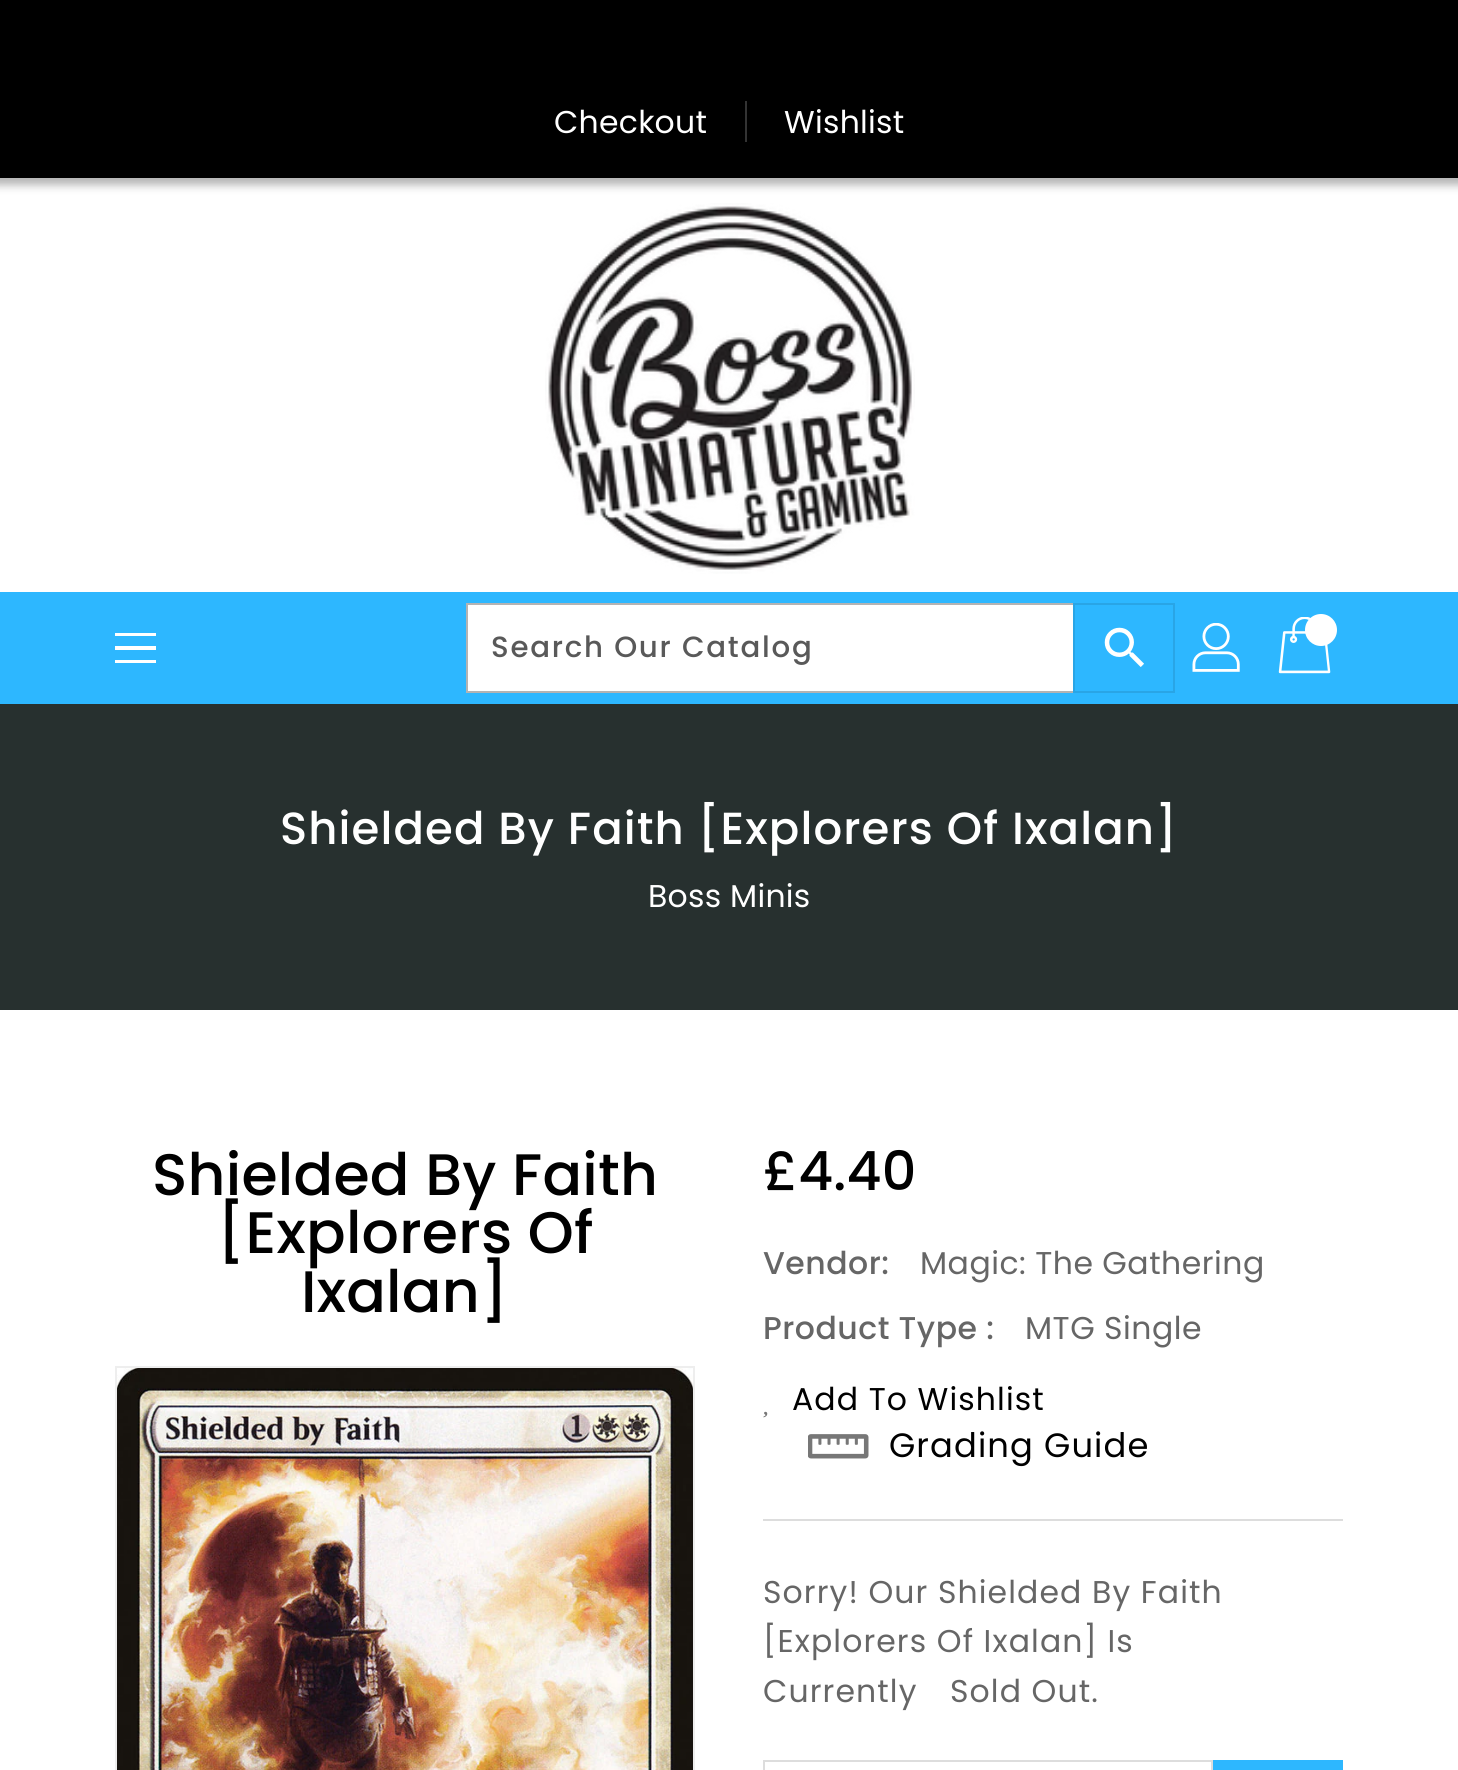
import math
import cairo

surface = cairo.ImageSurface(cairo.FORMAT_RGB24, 1458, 1770)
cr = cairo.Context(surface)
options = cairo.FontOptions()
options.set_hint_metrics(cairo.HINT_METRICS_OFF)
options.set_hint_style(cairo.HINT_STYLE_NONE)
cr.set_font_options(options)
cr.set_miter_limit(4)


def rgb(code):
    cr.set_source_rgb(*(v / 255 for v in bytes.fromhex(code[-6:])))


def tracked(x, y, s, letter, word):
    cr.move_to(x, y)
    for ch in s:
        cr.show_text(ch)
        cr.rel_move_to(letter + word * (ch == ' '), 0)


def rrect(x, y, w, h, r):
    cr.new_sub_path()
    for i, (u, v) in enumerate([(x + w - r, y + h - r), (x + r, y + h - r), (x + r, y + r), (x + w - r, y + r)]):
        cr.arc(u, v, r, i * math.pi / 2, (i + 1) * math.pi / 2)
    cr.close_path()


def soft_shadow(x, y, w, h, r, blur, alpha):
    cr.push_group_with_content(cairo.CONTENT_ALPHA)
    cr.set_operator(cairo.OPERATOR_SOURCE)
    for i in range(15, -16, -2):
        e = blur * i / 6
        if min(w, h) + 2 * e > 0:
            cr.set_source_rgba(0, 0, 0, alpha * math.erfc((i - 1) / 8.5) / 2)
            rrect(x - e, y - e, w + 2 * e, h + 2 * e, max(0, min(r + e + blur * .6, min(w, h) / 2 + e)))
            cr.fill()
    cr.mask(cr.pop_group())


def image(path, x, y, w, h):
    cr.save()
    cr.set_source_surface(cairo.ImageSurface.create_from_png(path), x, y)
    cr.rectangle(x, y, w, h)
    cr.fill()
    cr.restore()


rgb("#ffffff")
cr.paint()
rgb("#000000")
soft_shadow(-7, -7, 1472, 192, 0, 4.5, 0.3)
rgb("#000000")
cr.rectangle(0, 0, 1458, 178)
cr.fill()
rgb("#333333")
cr.rectangle(745, 101, 2, 41)
cr.fill()
image("img/1.png", 545, 203, 370, 371)
for x, y, w, h, color in [
    (0, 592, 1458, 112, "#2db7ff"),
    (115, 633, 41, 3, "#ffffff"),
    (115, 646, 41, 4, "#ffffff"),
    (115, 660, 41, 3, "#ffffff"),
    (468, 605, 605, 86, "#ffffff"),
]:
    rgb(color)
    cr.rectangle(x, y, w, h)
    cr.fill()
cr.rectangle(467, 604, 707, 88)
rgb("#b3b3b3")
cr.stroke()
cr.rectangle(1074, 604, 100, 88)
rgb("#29a5e6")
cr.stroke()
image("img/2.png", 1104, 627, 40, 40)
image("img/3.png", 1192, 623, 48, 49)
image("img/4.png", 1278, 617, 53, 57)
rgb("#ffffff")
cr.arc(1321, 630, 16, 0, 2 * math.pi)
cr.fill()
rgb("#27302f")
cr.rectangle(0, 704, 1458, 306)
cr.fill()
cr.rectangle(116, 1367, 578, 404)
rgb("#eeeeee")
cr.stroke()
image("img/5.png", 117, 1368, 576, 402)
image("img/6.png", 763, 1411, 5, 7)
image("img/7.png", 808, 1434, 61, 25)
rgb("#dddddd")
cr.rectangle(763, 1519, 580, 2)
cr.fill()
cr.rectangle(764, 1761, 448, 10)
cr.stroke()
rgb("#2db7ff")
cr.rectangle(1213, 1760, 130, 10)
cr.fill()
cr.select_font_face("Poppins")
cr.set_font_size(31.5)
rgb("#ffffff")
tracked(554, 133, "Checkout", 0.25, 0)
tracked(784, 133, "Wishlist", 0.25, 0)
cr.select_font_face("Poppins Medium")
cr.set_font_size(29.25)
rgb("#595959")
tracked(491, 657, "Search Our Catalog", 1.75, 0)
cr.set_font_size(45)
rgb("#ffffff")
tracked(280, 844, "Shielded By Faith [Explorers Of Ixalan]", 1.1, 0)
cr.select_font_face("Poppins")
cr.set_font_size(31.5)
tracked(648, 907, "Boss Minis", 0.25, 0)
cr.select_font_face("Poppins Medium")
cr.set_font_size(58.5)
rgb("#000000")
for x, y, s in [
    (152, 1195, "Shielded By Faith"),
    (217, 1253, "[Explorers Of"),
    (301, 1312, "Ixalan]"),
]:
    tracked(x, y, s, 0.25, 0)
cr.set_font_size(54)
tracked(763, 1190, "£4.40", 0.25, 0)
cr.set_font_size(31.5)
rgb("#666666")
tracked(763, 1274, "Vendor:", 0.5, 0)
cr.select_font_face("Poppins")
tracked(920, 1274, "Magic: The Gathering", 0.5, 0)
cr.select_font_face("Poppins Medium")
tracked(763, 1339, "Product Type :", 0.5, 0)
cr.select_font_face("Poppins")
tracked(1025, 1339, "MTG Single", 0.5, 0)
rgb("#000000")
tracked(792, 1410, "Add To Wishlist", 1.1, 0)
cr.set_font_size(33.75)
tracked(889, 1457, "Grading Guide", 1.1, 0)
cr.set_font_size(31.5)
rgb("#666666")
for x, y, s in [
    (763, 1603, "Sorry! Our Shielded By Faith"),
    (763, 1652, "[Explorers Of Ixalan] Is"),
    (763, 1702, "Currently"),
    (950, 1702, "Sold Out."),
]:
    tracked(x, y, s, 1.1, 0)
surface.write_to_png("page.png")
